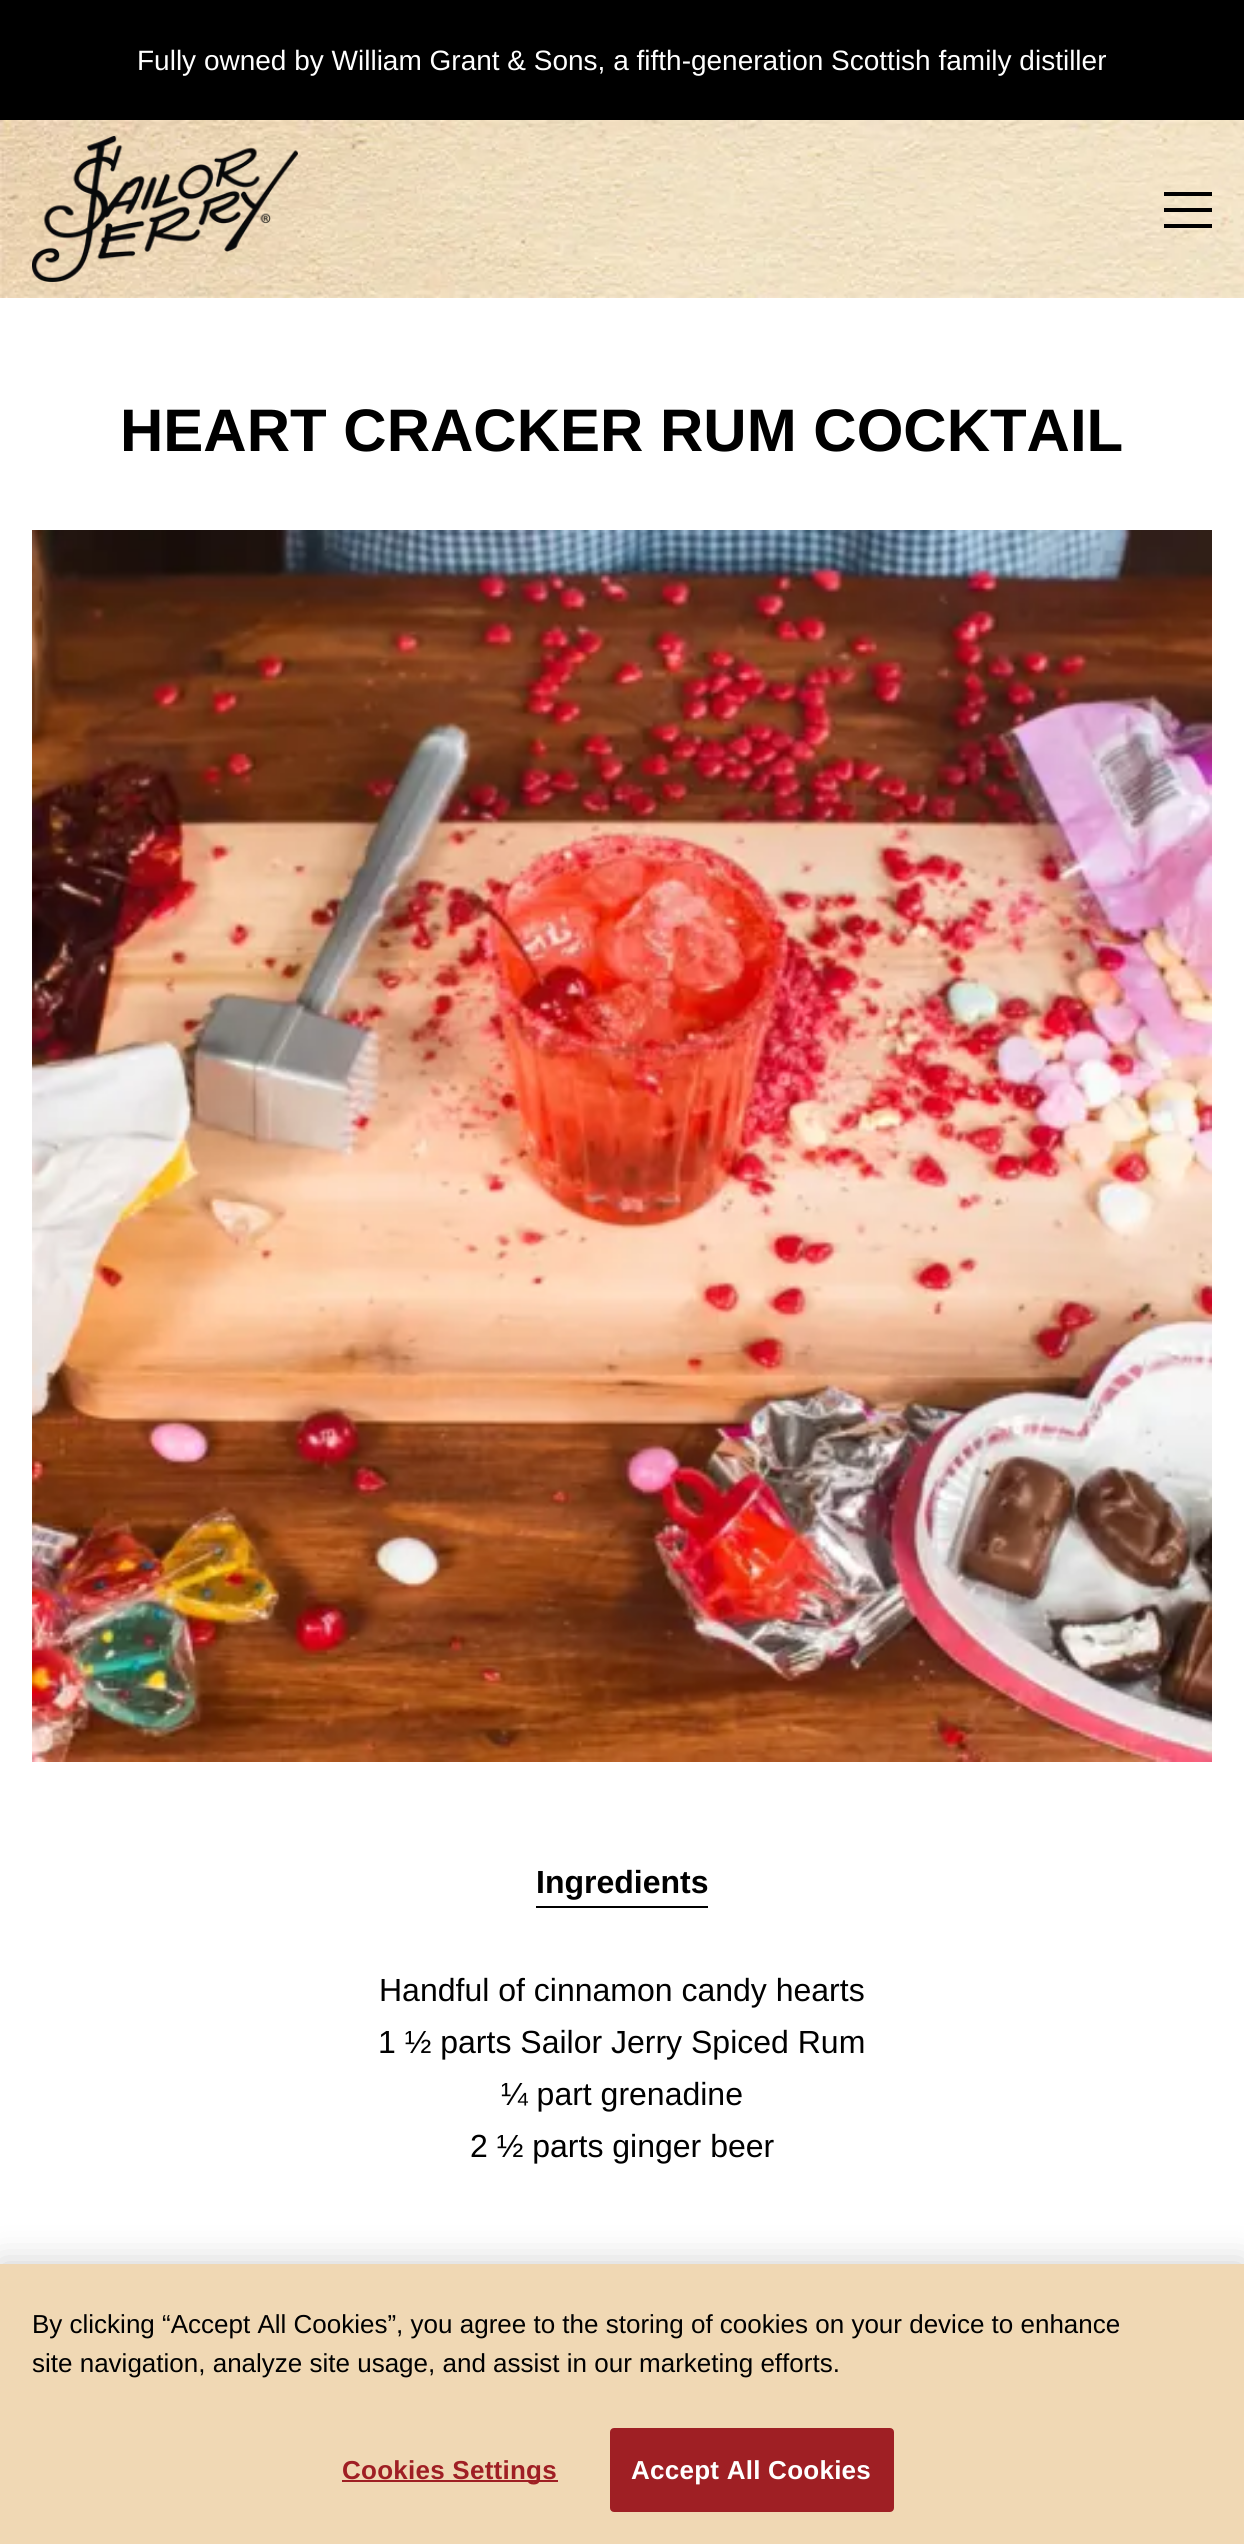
import math
import cairo

surface = cairo.ImageSurface(cairo.FORMAT_RGB24, 1244, 2544)
cr = cairo.Context(surface)
options = cairo.FontOptions()
options.set_hint_metrics(cairo.HINT_METRICS_OFF)
options.set_hint_style(cairo.HINT_STYLE_NONE)
cr.set_font_options(options)
cr.set_miter_limit(4)


def rgb(code):
    cr.set_source_rgb(*(v / 255 for v in bytes.fromhex(code[-6:])))


def tracked(x, y, s, letter, word):
    cr.move_to(x, y)
    for ch in s:
        cr.show_text(ch)
        cr.rel_move_to(letter + word * (ch == ' '), 0)


def rrect(x, y, w, h, r):
    cr.new_sub_path()
    for i, (u, v) in enumerate([(x + w - r, y + h - r), (x + r, y + h - r), (x + r, y + r), (x + w - r, y + r)]):
        cr.arc(u, v, r, i * math.pi / 2, (i + 1) * math.pi / 2)
    cr.close_path()


def soft_shadow(x, y, w, h, r, blur, alpha):
    cr.push_group_with_content(cairo.CONTENT_ALPHA)
    cr.set_operator(cairo.OPERATOR_SOURCE)
    for i in range(15, -16, -2):
        e = blur * i / 6
        if min(w, h) + 2 * e > 0:
            cr.set_source_rgba(0, 0, 0, alpha * math.erfc((i - 1) / 8.5) / 2)
            rrect(x - e, y - e, w + 2 * e, h + 2 * e, max(0, min(r + e + blur * .6, min(w, h) / 2 + e)))
            cr.fill()
    cr.mask(cr.pop_group())


def image(path, x, y, w, h):
    cr.save()
    cr.set_source_surface(cairo.ImageSurface.create_from_png(path), x, y)
    cr.rectangle(x, y, w, h)
    cr.fill()
    cr.restore()


rgb("#ffffff")
cr.paint()
rgb("#000000")
cr.rectangle(0, 0, 1244, 120)
cr.fill()
image("img/1.png", 0, 120, 1244, 178)
image("img/2.png", 32, 136, 266, 146)
for x, y, w, h, color in [
    (1164, 192, 48, 4, "#000000"),
    (1164, 208, 48, 4, "#000000"),
    (1164, 224, 48, 4, "#000000"),
]:
    rgb(color)
    cr.rectangle(x, y, w, h)
    cr.fill()
image("img/3.png", 32, 530, 1180, 1232)
cr.rectangle(536, 1906, 172, 2)
cr.fill()
rgb("#000000")
soft_shadow(0, 2264, 1244, 280, 0, 18, 0.2)
rgb("#f0d8b4")
cr.rectangle(0, 2264, 1244, 280)
cr.fill()
rgb("#9f1f24")
cr.rectangle(342, 2480, 216, 2)
cr.fill()
rrect(611, 2429, 282, 82, 3)
cr.fill_preserve()
cr.stroke()
cr.select_font_face("Liberation Sans")
cr.set_font_size(28)
rgb("#ffffff")
cr.move_to(137, 70)
cr.show_text("Fully owned by William Grant & Sons, a fifth-generation Scottish family distiller")
cr.select_font_face("Liberation Sans", cairo.FONT_SLANT_NORMAL, cairo.FONT_WEIGHT_BOLD)
cr.set_font_size(60)
rgb("#000000")
cr.move_to(120, 451)
cr.show_text("HEART CRACKER RUM COCKTAIL")
cr.set_font_size(32)
cr.move_to(536, 1893)
cr.show_text("Ingredients")
cr.select_font_face("Liberation Sans")
for x, y, s in [
    (379, 2001, "Handful of cinnamon candy hearts"),
    (378, 2053, "1 ½ parts Sailor Jerry Spiced Rum"),
    (501, 2105, "¼ part grenadine"),
    (470, 2157, "2 ½ parts ginger beer"),
]:
    cr.move_to(x, y)
    cr.show_text(s)
cr.set_font_size(26)
cr.move_to(32, 2333)
cr.show_text("By clicking “Accept All Cookies”, you agree to the storing of cookies on your device to enhance")
cr.move_to(32, 2372)
cr.show_text("site navigation, analyze site usage, and assist in our marketing efforts.")
cr.select_font_face("Liberation Sans", cairo.FONT_SLANT_NORMAL, cairo.FONT_WEIGHT_BOLD)
rgb("#9f1f24")
tracked(342, 2479, "Cookies Settings", 0.25, 0)
rgb("#ffffff")
tracked(631, 2479, "Accept All Cookies", 0.25, 0)
surface.write_to_png("page.png")
